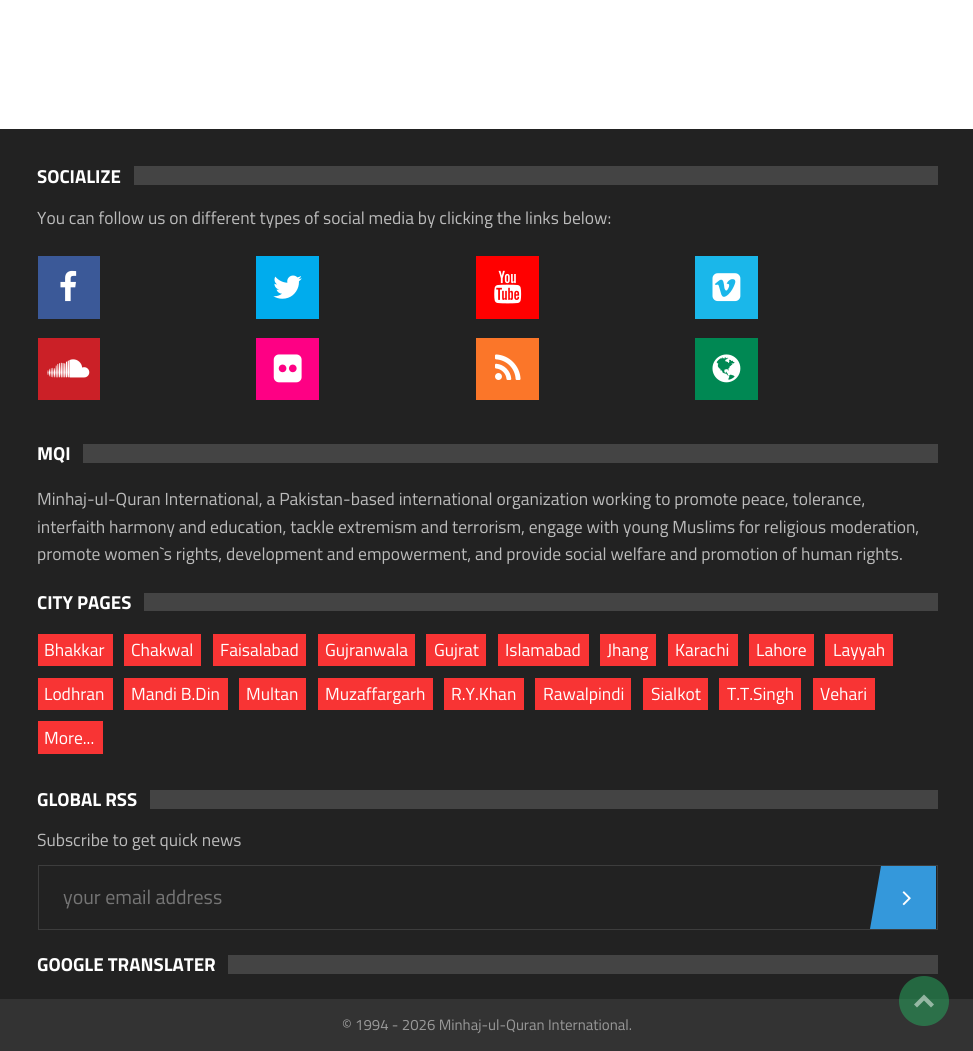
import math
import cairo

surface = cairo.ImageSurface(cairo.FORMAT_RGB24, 973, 1051)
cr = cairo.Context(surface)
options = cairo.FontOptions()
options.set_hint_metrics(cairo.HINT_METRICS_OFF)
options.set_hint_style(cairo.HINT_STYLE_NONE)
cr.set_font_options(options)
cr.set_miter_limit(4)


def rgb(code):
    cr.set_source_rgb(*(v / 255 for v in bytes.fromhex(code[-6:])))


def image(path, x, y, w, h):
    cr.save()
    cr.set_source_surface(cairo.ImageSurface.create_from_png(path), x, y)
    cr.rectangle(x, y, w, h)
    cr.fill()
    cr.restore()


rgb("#ffffff")
cr.paint()
for x, y, w, h, color in [
    (0, 129, 973, 870, "#222222"),
    (134, 166, 804, 19, "#444444"),
    (38, 256, 62, 63, "#3b5998"),
]:
    rgb(color)
    cr.rectangle(x, y, w, h)
    cr.fill()
image("img/1.png", 60, 270, 17, 32)
rgb("#00aced")
cr.rectangle(256, 256, 63, 63)
cr.fill()
image("img/2.png", 273, 275, 29, 24)
rgb("#ff0000")
cr.rectangle(476, 256, 63, 63)
cr.fill()
image("img/3.png", 494, 270, 28, 34)
rgb("#1ab7ea")
cr.rectangle(695, 256, 63, 63)
cr.fill()
image("img/4.png", 712, 273, 29, 29)
rgb("#cb2027")
cr.rectangle(38, 338, 62, 62)
cr.fill()
image("img/5.png", 47, 359, 43, 19)
rgb("#fe0084")
cr.rectangle(256, 338, 63, 62)
cr.fill()
image("img/6.png", 273, 354, 29, 29)
rgb("#fb7629")
cr.rectangle(476, 338, 63, 62)
cr.fill()
image("img/7.png", 495, 354, 26, 26)
rgb("#008853")
cr.rectangle(695, 338, 63, 62)
cr.fill()
image("img/8.png", 712, 354, 29, 29)
for x, y, w, h, color in [
    (83, 444, 855, 19, "#444444"),
    (144, 593, 794, 18, "#444444"),
    (38, 634, 75, 32, "#f83434"),
    (124, 634, 77, 32, "#f83434"),
    (213, 634, 93, 32, "#f83434"),
    (318, 634, 97, 32, "#f83434"),
    (426, 634, 60, 32, "#f83434"),
    (498, 634, 91, 32, "#f83434"),
    (600, 634, 56, 32, "#f83434"),
    (668, 634, 70, 32, "#f83434"),
    (749, 634, 65, 32, "#f83434"),
    (825, 634, 68, 32, "#f83434"),
    (38, 678, 75, 32, "#f83434"),
    (124, 678, 104, 32, "#f83434"),
    (239, 678, 67, 32, "#f83434"),
    (318, 678, 115, 32, "#f83434"),
    (444, 678, 80, 32, "#f83434"),
    (535, 678, 96, 32, "#f83434"),
    (643, 678, 65, 32, "#f83434"),
    (719, 678, 82, 32, "#f83434"),
    (813, 678, 62, 32, "#f83434"),
    (38, 721, 65, 33, "#f83434"),
    (150, 790, 788, 19, "#444444"),
]:
    rgb(color)
    cr.rectangle(x, y, w, h)
    cr.fill()
cr.rectangle(38.5, 865.5, 899, 64)
rgb("#3d3d3d")
cr.set_line_width(1)
cr.stroke()
cr.save()
cr.rectangle(39, 866, 897, 63)
cr.clip()
rgb("#3498db")
cr.new_path()
cr.move_to(881, 866)
cr.line_to(947, 866)
cr.line_to(936, 929)
cr.line_to(870, 929)
cr.close_path()
cr.fill()
cr.restore()
image("img/9.png", 902, 891, 9, 15)
rgb("#444444")
cr.rectangle(228, 955, 710, 19)
cr.fill()
rgb("#333333")
cr.rectangle(0, 999, 973, 52)
cr.fill()
cr.set_source_rgba(0.153, 0.682, 0.38, 0.5)
cr.arc(924, 1001, 25, 0, 2 * math.pi)
cr.fill()
cr.set_source_rgba(1, 1, 1, 0.5)
cr.new_path()
cr.move_to(924, 994.5)
cr.line_to(934, 1004.5)
cr.line_to(931, 1007.5)
cr.line_to(924, 1000.5)
cr.line_to(917, 1007.5)
cr.line_to(914, 1004.5)
cr.close_path()
cr.fill()
cr.select_font_face("Titillium Web", cairo.FONT_SLANT_NORMAL, cairo.FONT_WEIGHT_BOLD)
cr.set_font_size(18.75)
rgb("#ffffff")
cr.move_to(37, 183)
cr.show_text("SOCIALIZE")
cr.select_font_face("Titillium Web")
cr.set_font_size(17.5)
rgb("#bbbbbb")
cr.move_to(37, 224)
cr.show_text("You can follow us on different types of social media by clicking the links below:")
cr.select_font_face("Titillium Web", cairo.FONT_SLANT_NORMAL, cairo.FONT_WEIGHT_BOLD)
cr.set_font_size(18.75)
rgb("#ffffff")
cr.move_to(37, 460)
cr.show_text("MQI")
cr.select_font_face("Titillium Web")
cr.set_font_size(17.5)
rgb("#bbbbbb")
for x, y, s in [
    (37, 505, "Minhaj-ul-Quran International, a Pakistan-based international organization working to promote peace, tolerance,"),
    (37, 533, "interfaith harmony and education, tackle extremism and terrorism, engage with young Muslims for religious moderation,"),
    (37, 560, "promote women`s rights, development and empowerment, and provide social welfare and promotion of human rights."),
]:
    cr.move_to(x, y)
    cr.show_text(s)
cr.select_font_face("Titillium Web", cairo.FONT_SLANT_NORMAL, cairo.FONT_WEIGHT_BOLD)
cr.set_font_size(18.75)
rgb("#ffffff")
cr.move_to(37, 609)
cr.show_text("CITY PAGES")
cr.select_font_face("Titillium Web")
cr.set_font_size(17.5)
for x, y, s in [
    (44, 656, "Bhakkar"),
    (131, 656, "Chakwal"),
    (220, 656, "Faisalabad"),
    (325, 656, "Gujranwala"),
    (434, 656, "Gujrat"),
    (505, 656, "Islamabad"),
    (607, 656, "Jhang"),
    (675, 656, "Karachi"),
    (756, 656, "Lahore"),
    (833, 656, "Layyah"),
    (44, 700, "Lodhran"),
    (131, 700, "Mandi B.Din"),
    (246, 700, "Multan"),
    (325, 700, "Muzaffargarh"),
    (451, 700, "R.Y.Khan"),
    (543, 700, "Rawalpindi"),
    (651, 700, "Sialkot"),
    (727, 700, "T.T.Singh"),
    (820, 700, "Vehari"),
    (44, 744, "More..."),
]:
    cr.move_to(x, y)
    cr.show_text(s)
cr.select_font_face("Titillium Web", cairo.FONT_SLANT_NORMAL, cairo.FONT_WEIGHT_BOLD)
cr.set_font_size(18.75)
cr.move_to(37, 806)
cr.show_text("GLOBAL RSS")
cr.select_font_face("Titillium Web")
cr.set_font_size(17.5)
rgb("#bbbbbb")
cr.move_to(37, 846)
cr.show_text("Subscribe to get quick news")
cr.set_font_size(20)
rgb("#757575")
cr.move_to(63, 904)
cr.show_text("your email address")
cr.select_font_face("Titillium Web", cairo.FONT_SLANT_NORMAL, cairo.FONT_WEIGHT_BOLD)
cr.set_font_size(18.75)
rgb("#ffffff")
cr.move_to(37, 971)
cr.show_text("GOOGLE TRANSLATER")
cr.select_font_face("Titillium Web")
cr.set_font_size(15)
rgb("#999999")
cr.move_to(342, 1030)
cr.show_text("© 1994 - 2026 Minhaj-ul-Quran International.")
surface.write_to_png("page.png")
